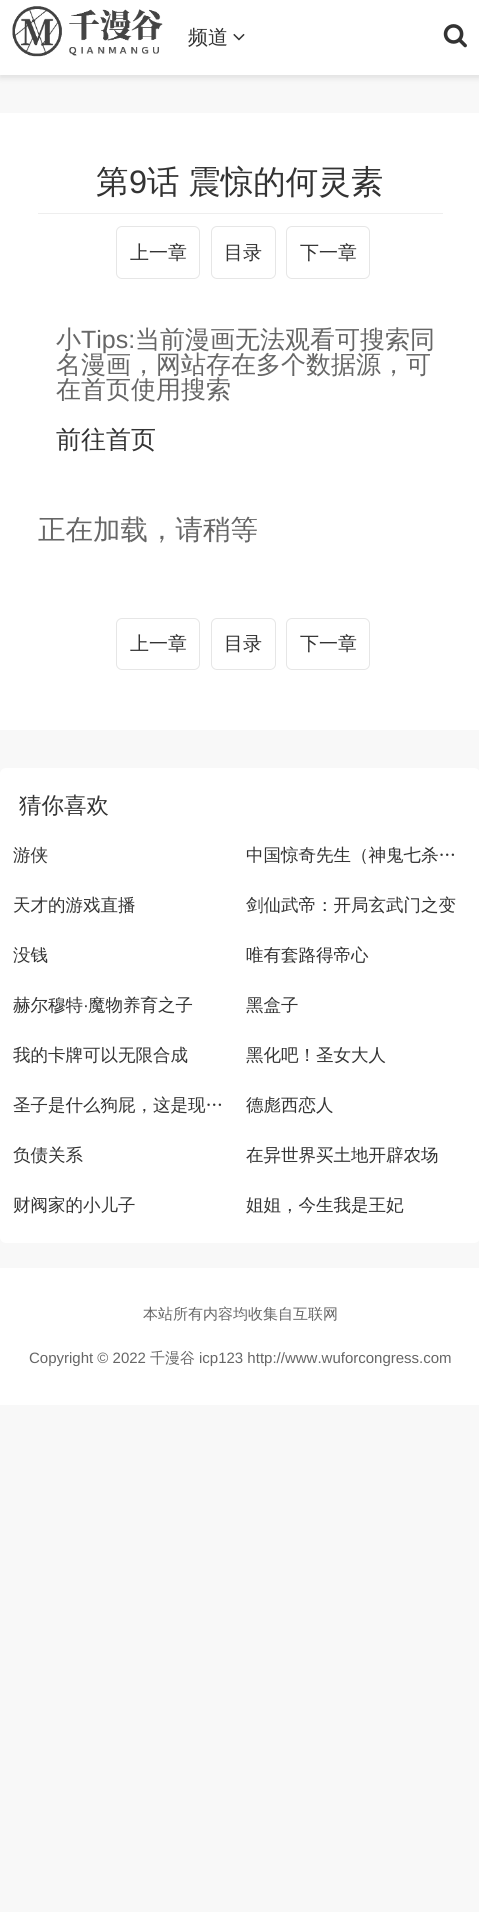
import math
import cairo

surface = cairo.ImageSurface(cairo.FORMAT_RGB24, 479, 1912)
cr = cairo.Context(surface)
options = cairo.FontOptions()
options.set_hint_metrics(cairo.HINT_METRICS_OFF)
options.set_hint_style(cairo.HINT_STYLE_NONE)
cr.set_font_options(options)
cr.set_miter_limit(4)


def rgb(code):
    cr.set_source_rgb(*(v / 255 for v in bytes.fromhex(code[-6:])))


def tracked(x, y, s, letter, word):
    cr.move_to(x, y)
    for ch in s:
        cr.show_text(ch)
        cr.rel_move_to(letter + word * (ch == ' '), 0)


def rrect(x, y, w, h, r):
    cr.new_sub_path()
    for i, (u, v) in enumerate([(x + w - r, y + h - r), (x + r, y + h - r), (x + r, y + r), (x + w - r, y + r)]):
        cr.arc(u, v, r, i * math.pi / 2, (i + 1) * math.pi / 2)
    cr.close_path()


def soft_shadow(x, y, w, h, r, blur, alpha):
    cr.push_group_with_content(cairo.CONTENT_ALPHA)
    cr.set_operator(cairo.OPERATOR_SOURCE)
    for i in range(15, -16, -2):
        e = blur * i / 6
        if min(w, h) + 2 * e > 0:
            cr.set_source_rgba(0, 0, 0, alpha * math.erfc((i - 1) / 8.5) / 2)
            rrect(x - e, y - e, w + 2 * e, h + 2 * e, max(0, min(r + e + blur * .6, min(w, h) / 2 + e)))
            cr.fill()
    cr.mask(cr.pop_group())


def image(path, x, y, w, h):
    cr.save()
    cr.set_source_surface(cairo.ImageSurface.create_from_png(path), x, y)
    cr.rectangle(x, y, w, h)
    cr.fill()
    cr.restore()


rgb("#f8f8f8")
cr.paint()
rgb("#000000")
soft_shadow(0, 3, 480, 75, 0, 3, 0.1)
rgb("#ffffff")
cr.rectangle(0, 0, 479, 75)
cr.fill()
image("img/1.png", 12, 6, 151, 51)
image("img/2.png", 233, 33, 12, 8)
image("img/3.png", 443, 24, 24, 24)
cr.rectangle(0, 113, 479, 617)
cr.fill()
rgb("#eeeeee")
cr.rectangle(38, 213, 405, 1)
cr.fill()
rrect(116.5, 226.5, 83, 52, 5.5)
rgb("#e6e6e6")
cr.set_line_width(1)
cr.stroke()
rrect(211.5, 226.5, 64, 52, 5.5)
cr.stroke()
rrect(286.5, 226.5, 83, 52, 5.5)
cr.stroke()
rrect(116.5, 618.5, 83, 51, 5.5)
cr.stroke()
rrect(211.5, 618.5, 64, 51, 5.5)
cr.stroke()
rrect(286.5, 618.5, 83, 51, 5.5)
cr.stroke()
rgb("#ffffff")
rrect(0, 768, 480, 475, 6)
cr.fill()
cr.rectangle(0, 1268, 479, 137)
cr.fill()
cr.select_font_face("WenQuanYi Zen Hei Medium")
cr.set_font_size(20)
rgb("#333333")
cr.move_to(188, 44)
cr.show_text("频道")
cr.set_font_size(32.5)
cr.move_to(96, 193)
cr.show_text("第")
cr.select_font_face("Liberation Sans")
cr.move_to(129, 193)
cr.show_text("9")
cr.select_font_face("WenQuanYi Zen Hei Medium")
tracked(147, 193, "话 震惊的何灵素", 0, -1)
cr.set_font_size(19)
for x, y, s in [
    (130, 259, "上一章"),
    (224, 259, "目录"),
    (300, 259, "下一章"),
]:
    cr.move_to(x, y)
    cr.show_text(s)
cr.set_font_size(25)
rgb("#666666")
cr.move_to(56, 348)
cr.show_text("小")
cr.select_font_face("Liberation Sans")
cr.move_to(81, 348)
cr.show_text("Tips:")
cr.select_font_face("WenQuanYi Zen Hei Medium")
for x, y, s in [
    (135, 348, "当前漫画无法观看可搜索同"),
    (56, 373, "名漫画，网站存在多个数据源，可"),
    (56, 398, "在首页使用搜索"),
]:
    cr.move_to(x, y)
    cr.show_text(s)
rgb("#333333")
cr.move_to(56, 448)
cr.show_text("前往首页")
cr.set_font_size(27.5)
rgb("#666666")
cr.move_to(38, 539)
cr.show_text("正在加载，请稍等")
cr.set_font_size(19)
rgb("#333333")
for x, y, s in [
    (130, 650, "上一章"),
    (224, 650, "目录"),
    (300, 650, "下一章"),
]:
    cr.move_to(x, y)
    cr.show_text(s)
cr.set_font_size(22.5)
cr.move_to(19, 813)
cr.show_text("猜你喜欢")
cr.set_font_size(17.5)
for x, y, s in [
    (13, 861, "游侠"),
    (246, 861, "中国惊奇先生（神鬼七杀…"),
    (13, 911, "天才的游戏直播"),
    (246, 911, "剑仙武帝：开局玄武门之变"),
    (13, 961, "没钱"),
    (246, 961, "唯有套路得帝心"),
    (13, 1011, "赫尔穆特"),
]:
    cr.move_to(x, y)
    cr.show_text(s)
cr.select_font_face("Liberation Sans")
cr.move_to(83, 1011)
cr.show_text("·")
cr.select_font_face("WenQuanYi Zen Hei Medium")
for x, y, s in [
    (88, 1011, "魔物养育之子"),
    (246, 1011, "黑盒子"),
    (13, 1061, "我的卡牌可以无限合成"),
    (246, 1061, "黑化吧！圣女大人"),
    (13, 1111, "圣子是什么狗屁，这是现…"),
    (246, 1111, "德彪西恋人"),
    (13, 1161, "负债关系"),
    (246, 1161, "在异世界买土地开辟农场"),
    (13, 1211, "财阀家的小儿子"),
    (246, 1211, "姐姐，今生我是王妃"),
]:
    cr.move_to(x, y)
    cr.show_text(s)
cr.set_font_size(15)
rgb("#666666")
cr.move_to(143, 1319)
cr.show_text("本站所有内容均收集自互联网")
cr.select_font_face("Liberation Sans")
cr.move_to(29, 1363)
cr.show_text("Copyright © 2022")
cr.select_font_face("WenQuanYi Zen Hei Medium")
cr.move_to(150, 1363)
cr.show_text("千漫谷")
cr.select_font_face("Liberation Sans")
cr.move_to(199, 1363)
cr.show_text("icp123 http://www.wuforcongress.com")
surface.write_to_png("page.png")
